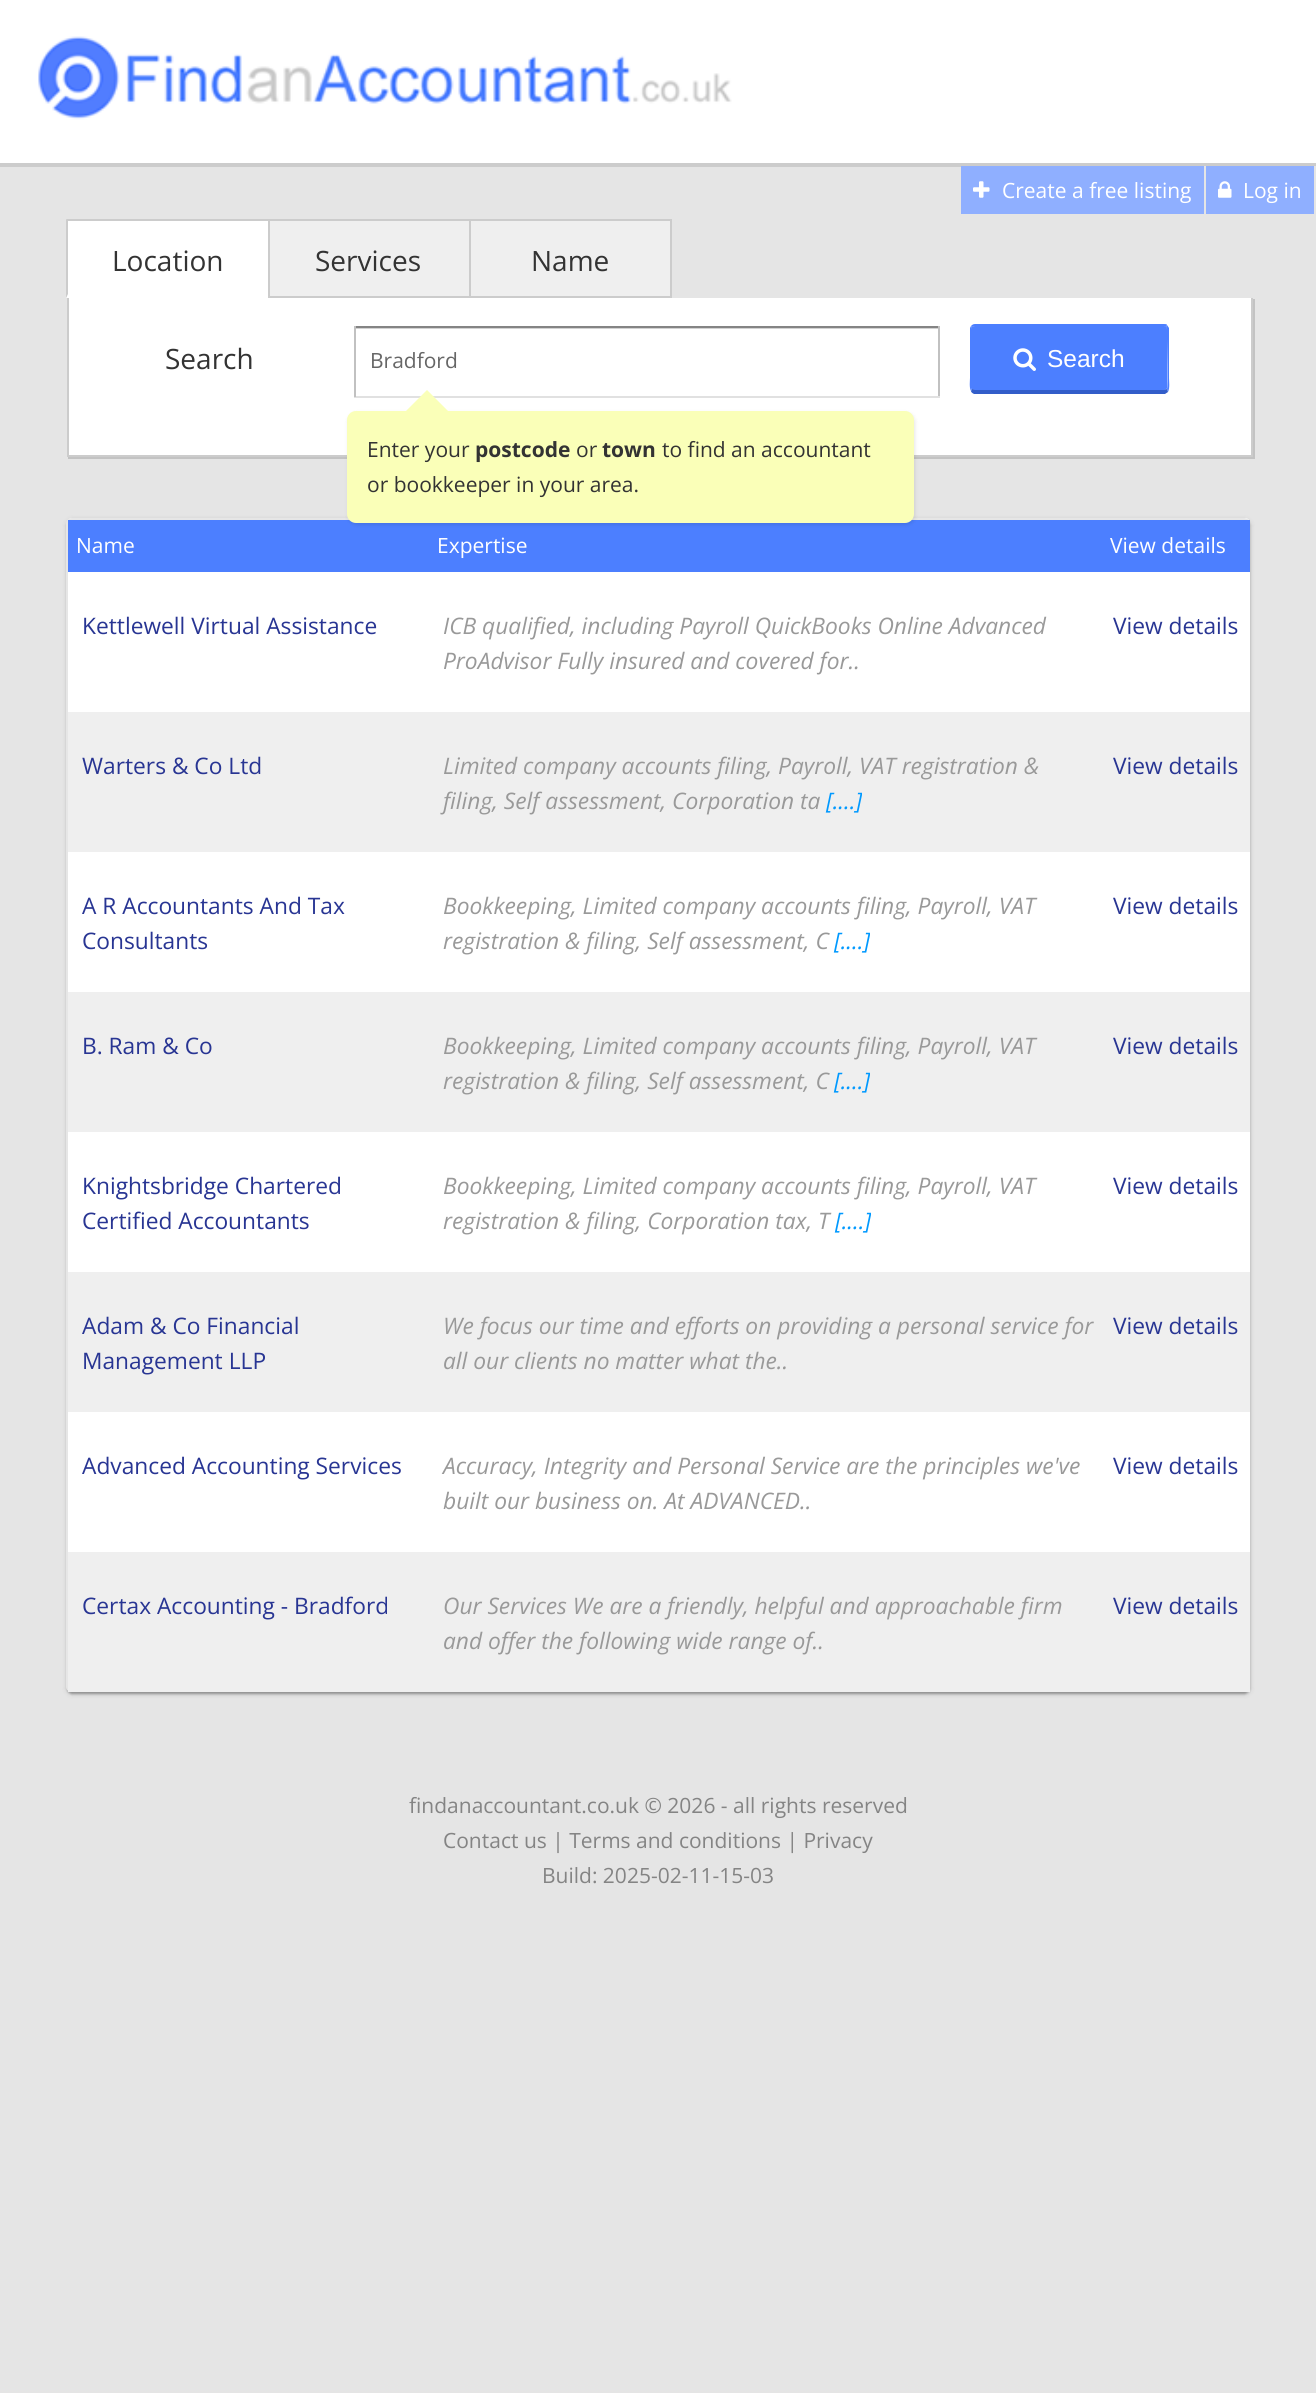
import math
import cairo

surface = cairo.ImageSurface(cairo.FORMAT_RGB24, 1316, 2393)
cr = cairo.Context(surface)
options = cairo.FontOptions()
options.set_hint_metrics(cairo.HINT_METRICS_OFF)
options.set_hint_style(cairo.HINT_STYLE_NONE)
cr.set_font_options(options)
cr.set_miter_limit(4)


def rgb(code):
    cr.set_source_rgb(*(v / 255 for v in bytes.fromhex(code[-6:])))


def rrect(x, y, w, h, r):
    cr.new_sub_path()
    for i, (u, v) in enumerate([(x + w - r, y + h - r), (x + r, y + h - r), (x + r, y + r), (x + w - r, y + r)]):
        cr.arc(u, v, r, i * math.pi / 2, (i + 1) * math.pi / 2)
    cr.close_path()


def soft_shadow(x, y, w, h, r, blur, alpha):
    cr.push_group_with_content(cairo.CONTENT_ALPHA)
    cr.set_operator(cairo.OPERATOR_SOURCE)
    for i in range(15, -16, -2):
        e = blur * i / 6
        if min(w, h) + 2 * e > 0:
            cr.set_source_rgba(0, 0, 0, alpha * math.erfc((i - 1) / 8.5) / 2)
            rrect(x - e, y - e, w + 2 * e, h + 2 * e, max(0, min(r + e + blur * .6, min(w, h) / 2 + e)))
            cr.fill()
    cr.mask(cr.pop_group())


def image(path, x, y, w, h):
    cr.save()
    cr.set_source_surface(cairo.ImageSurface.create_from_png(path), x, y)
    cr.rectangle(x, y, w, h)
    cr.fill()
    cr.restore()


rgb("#e5e5e5")
cr.paint()
rgb("#ffffff")
cr.rectangle(0, 0, 1316, 163)
cr.fill()
rgb("#cccccc")
cr.rectangle(0, 163, 1316, 4)
cr.fill()
image("img/1.png", 38, 36, 694, 84)
rgb("#8fafff")
cr.rectangle(961, 166, 243, 48)
cr.fill()
rgb("#e5e5e5")
cr.rectangle(1204, 166, 2, 1)
cr.fill()
image("img/2.png", 973, 181, 17, 17)
rgb("#8fafff")
cr.rectangle(1206, 166, 108, 48)
cr.fill()
rgb("#e5e5e5")
cr.rectangle(1314, 166, 2, 1)
cr.fill()
image("img/3.png", 1218, 181, 14, 17)
rgb("#ffffff")
cr.rectangle(67, 221, 201, 75)
cr.fill()
rgb("#cccccc")
cr.rectangle(67, 219, 402, 2)
cr.fill()
rgb("#ffffff")
cr.new_path()
cr.move_to(268, 298)
cr.line_to(66, 298)
cr.line_to(68, 294)
cr.line_to(268, 294)
cr.close_path()
cr.fill()
rgb("#cccccc")
cr.new_path()
cr.move_to(66, 298)
cr.line_to(66, 219)
cr.line_to(68, 220)
cr.line_to(68, 294)
cr.close_path()
cr.fill()
for x, y, w, h, color in [
    (270, 221, 199, 75, "#efefef"),
    (268, 296, 201, 2, "#cccccc"),
    (268, 219, 2, 79, "#cccccc"),
]:
    rgb(color)
    cr.rectangle(x, y, w, h)
    cr.fill()
rgb("#efefef")
cr.rectangle(470, 220, 201, 77)
cr.fill_preserve()
rgb("#cccccc")
cr.stroke()
rgb("#c3c3c3")
cr.new_path()
cr.move_to(68, 457)
cr.line_to(68, 459)
cr.line_to(1255, 459)
cr.line_to(1255, 299)
cr.line_to(1253, 299)
cr.line_to(1253, 457)
cr.close_path()
cr.fill()
for x, y, w, h, color in [
    (69, 298, 1182, 157, "#ffffff"),
    (1251, 298, 2, 159, "#cccccc"),
    (67, 455, 1186, 2, "#cccccc"),
    (67, 298, 2, 159, "#cccccc"),
    (355, 328, 583, 1, "#d2d2d2"),
    (354, 326, 586, 2, "#848484"),
    (938, 326, 2, 71, "#c1c1c1"),
    (354, 396, 586, 2, "#e1e1e1"),
    (354, 326, 2, 71, "#c1c1c1"),
]:
    rgb(color)
    cr.rectangle(x, y, w, h)
    cr.fill()
rgb("#4c7fff")
cr.new_path()
cr.move_to(975, 326)
cr.line_to(1164, 326)
cr.curve_to(1166, 326, 1167, 327, 1167, 329)
cr.line_to(1167, 388)
cr.curve_to(1167, 389, 1166, 390, 1164, 390)
cr.line_to(975, 390)
cr.curve_to(973, 390, 971, 389, 971, 388)
cr.line_to(971, 329)
cr.curve_to(971, 327, 973, 326, 975, 326)
cr.close_path()
cr.fill()
cr.new_path()
cr.move_to(975, 324)
cr.curve_to(973, 324, 972, 325, 971, 326)
cr.line_to(972, 327)
cr.line_to(975, 326)
cr.line_to(1164, 326)
cr.line_to(1166, 327)
cr.line_to(1167, 325)
cr.curve_to(1167, 324, 1165, 324, 1164, 324)
cr.close_path()
cr.fill()
cr.new_path()
cr.move_to(1167, 325)
cr.line_to(1169, 328)
cr.line_to(1169, 378)
cr.curve_to(1169, 381, 1170, 388, 1168, 392)
cr.line_to(1167, 389)
cr.curve_to(1168, 388, 1167, 344, 1167, 339)
cr.line_to(1167, 329)
cr.line_to(1166, 327)
cr.close_path()
cr.fill()
rgb("#325dc9")
cr.new_path()
cr.move_to(974, 394)
cr.curve_to(972, 393, 971, 392, 971, 391)
cr.line_to(972, 389)
cr.line_to(975, 390)
cr.line_to(1164, 390)
cr.line_to(1167, 389)
cr.line_to(1168, 392)
cr.line_to(1165, 394)
cr.close_path()
cr.fill()
rgb("#4c7fff")
cr.new_path()
cr.move_to(971, 326)
cr.line_to(970, 328)
cr.line_to(970, 378)
cr.curve_to(970, 380, 969, 388, 971, 391)
cr.line_to(972, 389)
cr.line_to(971, 388)
cr.line_to(971, 329)
cr.line_to(972, 327)
cr.close_path()
cr.fill()
image("img/4.png", 1013, 348, 23, 23)
rgb("#000000")
soft_shadow(68, 523, 1180, 1171, 4, 1, 0.12)
soft_shadow(67, 520, 1183, 1174, 5, 1, 0.14)
soft_shadow(67, 520, 1183, 1174, 5, 2.5, 0.2)
rgb("#ffffff")
rrect(67, 518, 1183, 1174, 5)
cr.fill()
rgb("#e6e6e6")
cr.set_fill_rule(cairo.FILL_RULE_EVEN_ODD)
cr.new_path()
cr.move_to(72, 518)
cr.line_to(1244, 518)
cr.curve_to(1247, 518, 1250, 520, 1250, 523)
cr.line_to(1250, 1687)
cr.curve_to(1250, 1690, 1247, 1692, 1244, 1692)
cr.line_to(72, 1692)
cr.curve_to(69, 1692, 66, 1690, 66, 1687)
cr.line_to(66, 523)
cr.curve_to(66, 520, 69, 518, 72, 518)
cr.close_path()
cr.move_to(72, 520)
cr.line_to(1244, 520)
cr.curve_to(1247, 520, 1250, 521, 1250, 523)
cr.line_to(1250, 1687)
cr.curve_to(1250, 1690, 1247, 1692, 1244, 1692)
cr.line_to(72, 1692)
cr.curve_to(70, 1692, 68, 1690, 68, 1687)
cr.line_to(68, 523)
cr.curve_to(68, 521, 70, 520, 72, 520)
cr.close_path()
cr.fill()
rgb("#4c7fff")
cr.rectangle(68, 520, 1182, 52)
cr.fill()
rgb("#000000")
soft_shadow(348, 413, 567, 112, 9, 2, 0.1)
rgb("#faffb8")
rrect(350.5, 414.5, 560, 105, 5.5)
cr.fill_preserve()
cr.set_line_width(7)
cr.stroke()
cr.set_fill_rule(cairo.FILL_RULE_WINDING)
cr.new_path()
cr.move_to(448, 411)
cr.line_to(406, 411)
cr.line_to(427, 390)
cr.close_path()
cr.fill()
for x, y, w, h, color in [
    (68, 712, 1182, 140, "#efefef"),
    (68, 992, 1182, 140, "#efefef"),
    (68, 1272, 1182, 140, "#efefef"),
    (68, 1552, 1182, 140, "#efefef"),
]:
    rgb(color)
    cr.rectangle(x, y, w, h)
    cr.fill()
cr.select_font_face("Open Sans")
cr.set_font_size(21)
rgb("#ffffff")
cr.move_to(1002, 198)
cr.show_text("Create a free listing")
cr.move_to(1243, 198)
cr.show_text("Log in")
cr.set_font_size(28)
rgb("#333333")
for x, y, s in [
    (112, 271, "Location"),
    (315, 271, "Services"),
    (531, 271, "Name"),
    (165, 369, "Search"),
]:
    cr.move_to(x, y)
    cr.show_text(s)
cr.set_font_size(21)
rgb("#666666")
cr.move_to(370, 368)
cr.show_text("Bradford")
cr.select_font_face("Liberation Sans")
cr.set_font_size(24.5)
rgb("#ffffff")
cr.move_to(1047, 367)
cr.show_text("Search")
cr.select_font_face("Open Sans")
cr.set_font_size(21)
rgb("#333333")
cr.move_to(367, 457)
cr.show_text("Enter your")
cr.select_font_face("Open Sans", cairo.FONT_SLANT_NORMAL, cairo.FONT_WEIGHT_BOLD)
cr.move_to(475, 457)
cr.show_text("postcode")
cr.select_font_face("Open Sans")
cr.move_to(576, 457)
cr.show_text("or")
cr.select_font_face("Open Sans", cairo.FONT_SLANT_NORMAL, cairo.FONT_WEIGHT_BOLD)
cr.move_to(602, 457)
cr.show_text("town")
cr.select_font_face("Open Sans")
cr.move_to(662, 457)
cr.show_text("to find an accountant")
cr.move_to(367, 492)
cr.show_text("or bookkeeper in your area.")
rgb("#ffffff")
for x, y, s in [
    (76, 553, "Name"),
    (437, 553, "Expertise"),
    (1110, 553, "View details"),
]:
    cr.move_to(x, y)
    cr.show_text(s)
cr.set_font_size(22.75)
rgb("#283593")
cr.move_to(82, 634)
cr.show_text("Kettlewell Virtual Assistance")
cr.select_font_face("Open Sans", cairo.FONT_SLANT_ITALIC)
rgb("#999999")
cr.move_to(443, 634)
cr.show_text("ICB qualified, including Payroll QuickBooks Online Advanced")
cr.move_to(443, 669)
cr.show_text("ProAdvisor Fully insured and covered for..")
cr.select_font_face("Open Sans")
rgb("#283593")
cr.move_to(1113, 634)
cr.show_text("View details")
cr.move_to(82, 774)
cr.show_text("Warters & Co Ltd")
cr.select_font_face("Open Sans", cairo.FONT_SLANT_ITALIC)
rgb("#999999")
cr.move_to(443, 774)
cr.show_text("Limited company accounts filing, Payroll, VAT registration &")
cr.move_to(443, 809)
cr.show_text("filing, Self assessment, Corporation ta")
rgb("#0099ff")
cr.move_to(826, 809)
cr.show_text("[....]")
cr.select_font_face("Open Sans")
rgb("#283593")
for x, y, s in [
    (1113, 774, "View details"),
    (82, 914, "A R Accountants And Tax"),
    (82, 949, "Consultants"),
]:
    cr.move_to(x, y)
    cr.show_text(s)
cr.select_font_face("Open Sans", cairo.FONT_SLANT_ITALIC)
rgb("#999999")
cr.move_to(443, 914)
cr.show_text("Bookkeeping, Limited company accounts filing, Payroll, VAT")
cr.move_to(443, 949)
cr.show_text("registration & filing, Self assessment, C")
rgb("#0099ff")
cr.move_to(834, 949)
cr.show_text("[....]")
cr.select_font_face("Open Sans")
rgb("#283593")
cr.move_to(1113, 914)
cr.show_text("View details")
cr.move_to(82, 1054)
cr.show_text("B. Ram & Co")
cr.select_font_face("Open Sans", cairo.FONT_SLANT_ITALIC)
rgb("#999999")
cr.move_to(443, 1054)
cr.show_text("Bookkeeping, Limited company accounts filing, Payroll, VAT")
cr.move_to(443, 1089)
cr.show_text("registration & filing, Self assessment, C")
rgb("#0099ff")
cr.move_to(834, 1089)
cr.show_text("[....]")
cr.select_font_face("Open Sans")
rgb("#283593")
for x, y, s in [
    (1113, 1054, "View details"),
    (82, 1194, "Knightsbridge Chartered"),
    (82, 1229, "Certified Accountants"),
]:
    cr.move_to(x, y)
    cr.show_text(s)
cr.select_font_face("Open Sans", cairo.FONT_SLANT_ITALIC)
rgb("#999999")
cr.move_to(443, 1194)
cr.show_text("Bookkeeping, Limited company accounts filing, Payroll, VAT")
cr.move_to(443, 1229)
cr.show_text("registration & filing, Corporation tax, T")
rgb("#0099ff")
cr.move_to(835, 1229)
cr.show_text("[....]")
cr.select_font_face("Open Sans")
rgb("#283593")
for x, y, s in [
    (1113, 1194, "View details"),
    (82, 1334, "Adam & Co Financial"),
    (82, 1369, "Management LLP"),
]:
    cr.move_to(x, y)
    cr.show_text(s)
cr.select_font_face("Open Sans", cairo.FONT_SLANT_ITALIC)
rgb("#999999")
cr.move_to(443, 1334)
cr.show_text("We focus our time and efforts on providing a personal service for")
cr.move_to(443, 1369)
cr.show_text("all our clients no matter what the..")
cr.select_font_face("Open Sans")
rgb("#283593")
cr.move_to(1113, 1334)
cr.show_text("View details")
cr.move_to(82, 1474)
cr.show_text("Advanced Accounting Services")
cr.select_font_face("Open Sans", cairo.FONT_SLANT_ITALIC)
rgb("#999999")
cr.move_to(443, 1474)
cr.show_text("Accuracy, Integrity and Personal Service are the principles we've")
cr.move_to(443, 1509)
cr.show_text("built our business on. At ADVANCED..")
cr.select_font_face("Open Sans")
rgb("#283593")
cr.move_to(1113, 1474)
cr.show_text("View details")
cr.move_to(82, 1614)
cr.show_text("Certax Accounting - Bradford")
cr.select_font_face("Open Sans", cairo.FONT_SLANT_ITALIC)
rgb("#999999")
cr.move_to(443, 1614)
cr.show_text("Our Services We are a friendly, helpful and approachable firm")
cr.move_to(443, 1649)
cr.show_text("and offer the following wide range of..")
cr.select_font_face("Open Sans")
rgb("#283593")
cr.move_to(1113, 1614)
cr.show_text("View details")
cr.set_font_size(21)
rgb("#848484")
for x, y, s in [
    (409, 1813, "findanaccountant.co.uk © 2026 - all rights reserved"),
    (443, 1848, "Contact us | Terms and conditions | Privacy"),
    (542, 1883, "Build: 2025-02-11-15-03"),
]:
    cr.move_to(x, y)
    cr.show_text(s)
surface.write_to_png("page.png")
